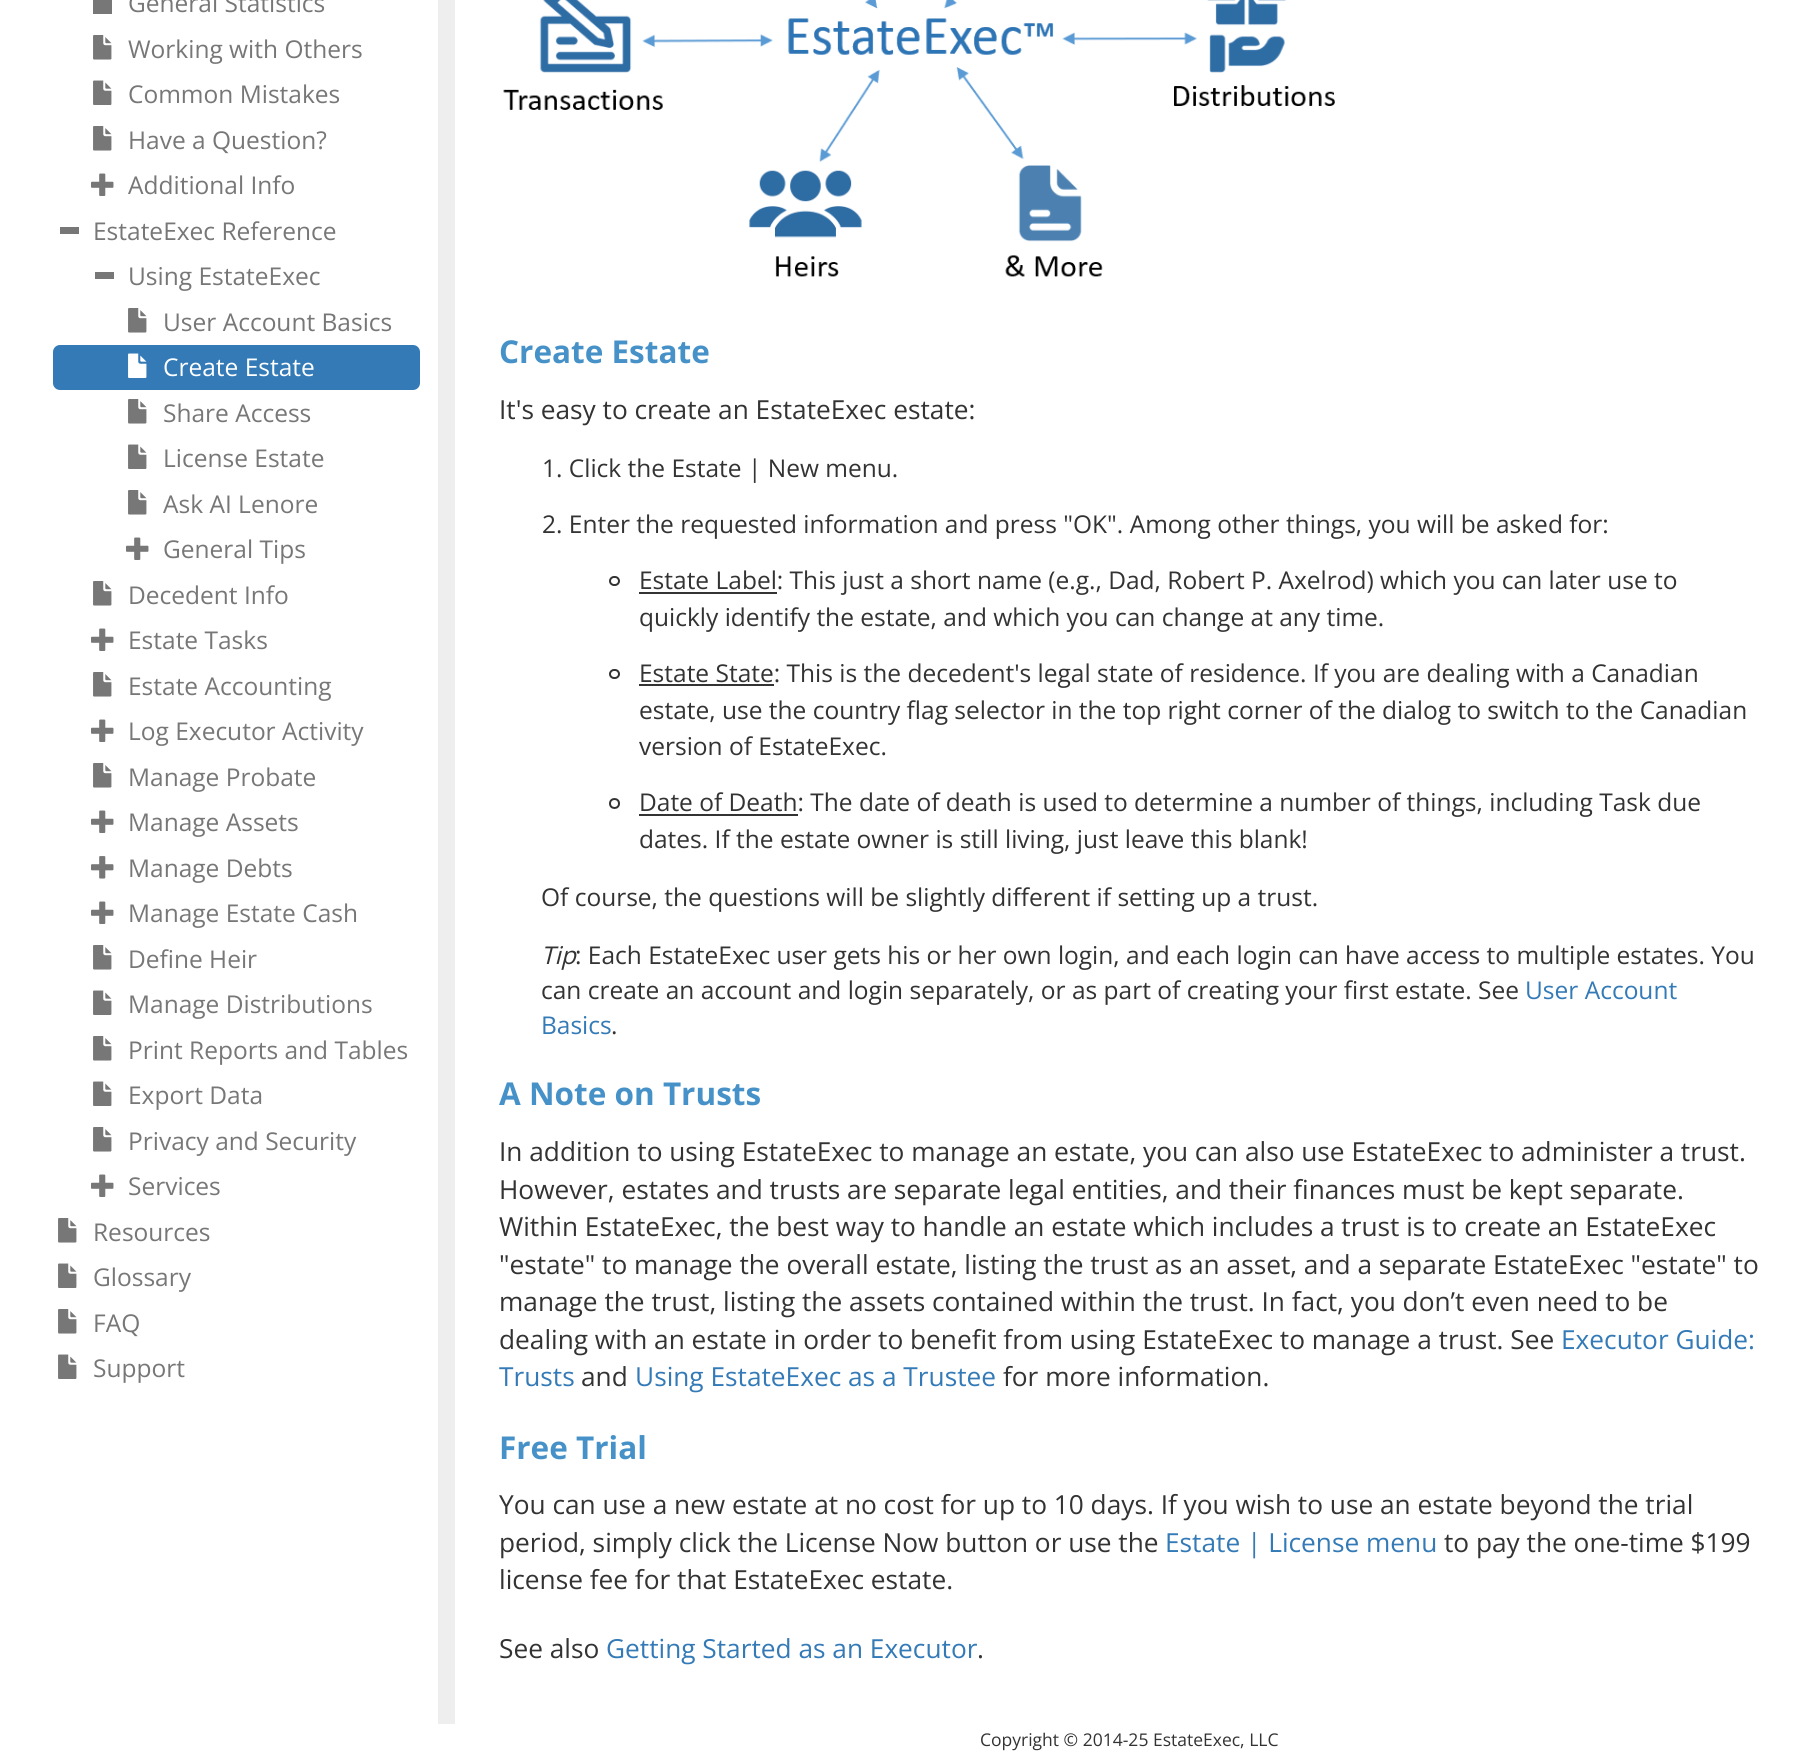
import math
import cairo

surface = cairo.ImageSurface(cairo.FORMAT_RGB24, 1813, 1751)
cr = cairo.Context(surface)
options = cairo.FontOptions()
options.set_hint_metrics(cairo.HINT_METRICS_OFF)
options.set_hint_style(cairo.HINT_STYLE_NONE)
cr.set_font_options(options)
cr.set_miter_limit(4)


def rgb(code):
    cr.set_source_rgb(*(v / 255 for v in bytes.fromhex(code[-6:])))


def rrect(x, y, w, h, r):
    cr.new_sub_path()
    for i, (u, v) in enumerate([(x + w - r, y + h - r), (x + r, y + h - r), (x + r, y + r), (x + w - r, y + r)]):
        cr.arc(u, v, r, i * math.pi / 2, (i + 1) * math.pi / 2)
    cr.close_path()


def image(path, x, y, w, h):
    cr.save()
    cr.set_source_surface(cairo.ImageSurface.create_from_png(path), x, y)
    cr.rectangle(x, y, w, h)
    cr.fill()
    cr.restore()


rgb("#ffffff")
cr.paint()
rgb("#777777")
cr.rectangle(93, 0, 19, 14)
cr.fill()
image("img/1.png", 93, 35, 19, 25)
image("img/2.png", 93, 80, 19, 25)
image("img/1.png", 93, 126, 19, 25)
image("img/3.png", 91, 173, 23, 23)
cr.rectangle(60, 227, 19, 7)
cr.fill()
cr.rectangle(95, 272, 19, 7)
cr.fill()
image("img/1.png", 128, 308, 19, 25)
rgb("#337ab7")
rrect(53, 345, 367, 45, 7)
cr.fill()
image("img/4.png", 128, 353, 19, 25)
image("img/1.png", 128, 399, 19, 25)
image("img/2.png", 128, 444, 19, 25)
image("img/1.png", 128, 490, 19, 25)
image("img/3.png", 126, 537, 23, 23)
image("img/1.png", 93, 581, 19, 25)
image("img/3.png", 91, 628, 23, 23)
image("img/1.png", 93, 672, 19, 25)
image("img/3.png", 91, 719, 23, 23)
image("img/1.png", 93, 763, 19, 25)
image("img/3.png", 91, 810, 23, 23)
image("img/5.png", 91, 856, 23, 23)
image("img/3.png", 91, 901, 23, 23)
image("img/1.png", 93, 945, 19, 25)
image("img/2.png", 93, 990, 19, 25)
image("img/1.png", 93, 1036, 19, 25)
image("img/2.png", 93, 1081, 19, 25)
image("img/1.png", 93, 1127, 19, 25)
image("img/3.png", 91, 1174, 23, 23)
image("img/1.png", 58, 1218, 19, 25)
image("img/2.png", 58, 1263, 19, 25)
image("img/1.png", 58, 1309, 19, 25)
image("img/2.png", 58, 1354, 19, 25)
rgb("#eeeeee")
cr.rectangle(438, 0, 17, 1724)
cr.fill()
image("img/6.png", 503, 0, 832, 277)
rrect(610, 577, 9, 8, 4)
rgb("#333333")
cr.stroke()
cr.rectangle(639, 592, 138, 2)
cr.fill()
rrect(610, 670, 9, 8, 4)
cr.stroke()
cr.rectangle(639, 684, 135, 2)
cr.fill()
cr.arc(614.5, 803.5, 4.5, 0, 2 * math.pi)
cr.stroke()
cr.rectangle(639, 814, 159, 2)
cr.fill()
cr.select_font_face("Open Sans")
cr.set_font_size(24.5)
rgb("#777777")
for x, y, s in [
    (128, 12, "General Statistics"),
    (128, 58, "Working with Others"),
    (128, 103, "Common Mistakes"),
    (128, 149, "Have a Question?"),
    (128, 194, "Additional Info"),
    (93, 240, "EstateExec Reference"),
    (128, 285, "Using EstateExec"),
    (163, 331, "User Account Basics"),
]:
    cr.move_to(x, y)
    cr.show_text(s)
rgb("#ffffff")
cr.move_to(163, 376)
cr.show_text("Create Estate")
rgb("#777777")
for x, y, s in [
    (163, 422, "Share Access"),
    (163, 467, "License Estate"),
    (163, 513, "Ask AI Lenore"),
    (163, 558, "General Tips"),
    (128, 604, "Decedent Info"),
    (128, 649, "Estate Tasks"),
    (128, 695, "Estate Accounting"),
    (128, 740, "Log Executor Activity"),
    (128, 786, "Manage Probate"),
    (128, 831, "Manage Assets"),
    (128, 877, "Manage Debts"),
    (128, 922, "Manage Estate Cash"),
    (128, 968, "Define Heir"),
    (128, 1013, "Manage Distributions"),
    (128, 1059, "Print Reports and Tables"),
    (128, 1104, "Export Data"),
    (128, 1150, "Privacy and Security"),
    (128, 1195, "Services"),
    (93, 1241, "Resources"),
    (93, 1286, "Glossary"),
    (93, 1332, "FAQ"),
    (93, 1377, "Support"),
]:
    cr.move_to(x, y)
    cr.show_text(s)
cr.select_font_face("Open Sans", cairo.FONT_SLANT_NORMAL, cairo.FONT_WEIGHT_BOLD)
cr.set_font_size(31.5)
rgb("#4692c8")
cr.move_to(499, 363)
cr.show_text("Create Estate")
cr.select_font_face("Open Sans")
cr.set_font_size(26.25)
rgb("#333333")
cr.move_to(499, 419)
cr.show_text("It's easy to create an EstateExec estate:")
cr.set_font_size(24.5)
for x, y, s in [
    (542, 477, "1. Click the Estate | New menu."),
    (542, 533, "2. Enter the requested information and press \"OK\". Among other things, you will be asked for:"),
    (639, 589, "Estate Label: This just a short name (e.g., Dad, Robert P. Axelrod) which you can later use to"),
    (639, 626, "quickly identify the estate, and which you can change at any time."),
    (639, 682, "Estate State: This is the decedent's legal state of residence. If you are dealing with a Canadian"),
    (639, 719, "estate, use the country flag selector in the top right corner of the dialog to switch to the Canadian"),
    (639, 755, "version of EstateExec."),
    (639, 811, "Date of Death: The date of death is used to determine a number of things, including Task due"),
    (639, 848, "dates. If the estate owner is still living, just leave this blank!"),
    (541, 906, "Of course, the questions will be slightly different if setting up a trust."),
]:
    cr.move_to(x, y)
    cr.show_text(s)
cr.select_font_face("Open Sans", cairo.FONT_SLANT_ITALIC)
cr.move_to(541, 964)
cr.show_text("Tip")
cr.select_font_face("Open Sans")
cr.move_to(575, 964)
cr.show_text(": Each EstateExec user gets his or her own login, and each login can have access to multiple estates. You")
cr.move_to(541, 999)
cr.show_text("can create an account and login separately, or as part of creating your first estate. See")
rgb("#337ab7")
cr.move_to(1525, 999)
cr.show_text("User Account")
cr.move_to(541, 1034)
cr.show_text("Basics")
rgb("#333333")
cr.move_to(611, 1034)
cr.show_text(".")
cr.select_font_face("Open Sans", cairo.FONT_SLANT_NORMAL, cairo.FONT_WEIGHT_BOLD)
cr.set_font_size(31.5)
rgb("#4692c8")
cr.move_to(499, 1105)
cr.show_text("A Note on Trusts")
cr.select_font_face("Open Sans")
cr.set_font_size(26.25)
rgb("#333333")
for x, y, s in [
    (499, 1161, "In addition to using EstateExec to manage an estate, you can also use EstateExec to administer a trust."),
    (499, 1199, "However, estates and trusts are separate legal entities, and their finances must be kept separate."),
    (499, 1236, "Within EstateExec, the best way to handle an estate which includes a trust is to create an EstateExec"),
    (499, 1274, "\"estate\" to manage the overall estate, listing the trust as an asset, and a separate EstateExec \"estate\" to"),
    (499, 1311, "manage the trust, listing the assets contained within the trust. In fact, you don’t even need to be"),
    (499, 1349, "dealing with an estate in order to benefit from using EstateExec to manage a trust. See"),
]:
    cr.move_to(x, y)
    cr.show_text(s)
rgb("#337ab7")
cr.move_to(1561, 1349)
cr.show_text("Executor Guide:")
cr.move_to(499, 1386)
cr.show_text("Trusts")
rgb("#333333")
cr.move_to(581, 1386)
cr.show_text("and")
rgb("#337ab7")
cr.move_to(635, 1386)
cr.show_text("Using EstateExec as a Trustee")
rgb("#333333")
cr.move_to(1003, 1386)
cr.show_text("for more information.")
cr.select_font_face("Open Sans", cairo.FONT_SLANT_NORMAL, cairo.FONT_WEIGHT_BOLD)
cr.set_font_size(31.5)
rgb("#4692c8")
cr.move_to(499, 1459)
cr.show_text("Free Trial")
cr.select_font_face("Open Sans")
cr.set_font_size(26.25)
rgb("#333333")
cr.move_to(499, 1514)
cr.show_text("You can use a new estate at no cost for up to 10 days. If you wish to use an estate beyond the trial")
cr.move_to(499, 1552)
cr.show_text("period, simply click the License Now button or use the")
rgb("#337ab7")
cr.move_to(1165, 1552)
cr.show_text("Estate | License menu")
rgb("#333333")
for x, y, s in [
    (1444, 1552, "to pay the one-time $199"),
    (499, 1589, "license fee for that EstateExec estate."),
    (499, 1658, "See also"),
]:
    cr.move_to(x, y)
    cr.show_text(s)
rgb("#337ab7")
cr.move_to(606, 1658)
cr.show_text("Getting Started as an Executor")
rgb("#333333")
cr.move_to(977, 1658)
cr.show_text(".")
cr.set_font_size(17.5)
cr.move_to(980, 1746)
cr.show_text("Copyright © 2014-25 EstateExec, LLC")
surface.write_to_png("page.png")
